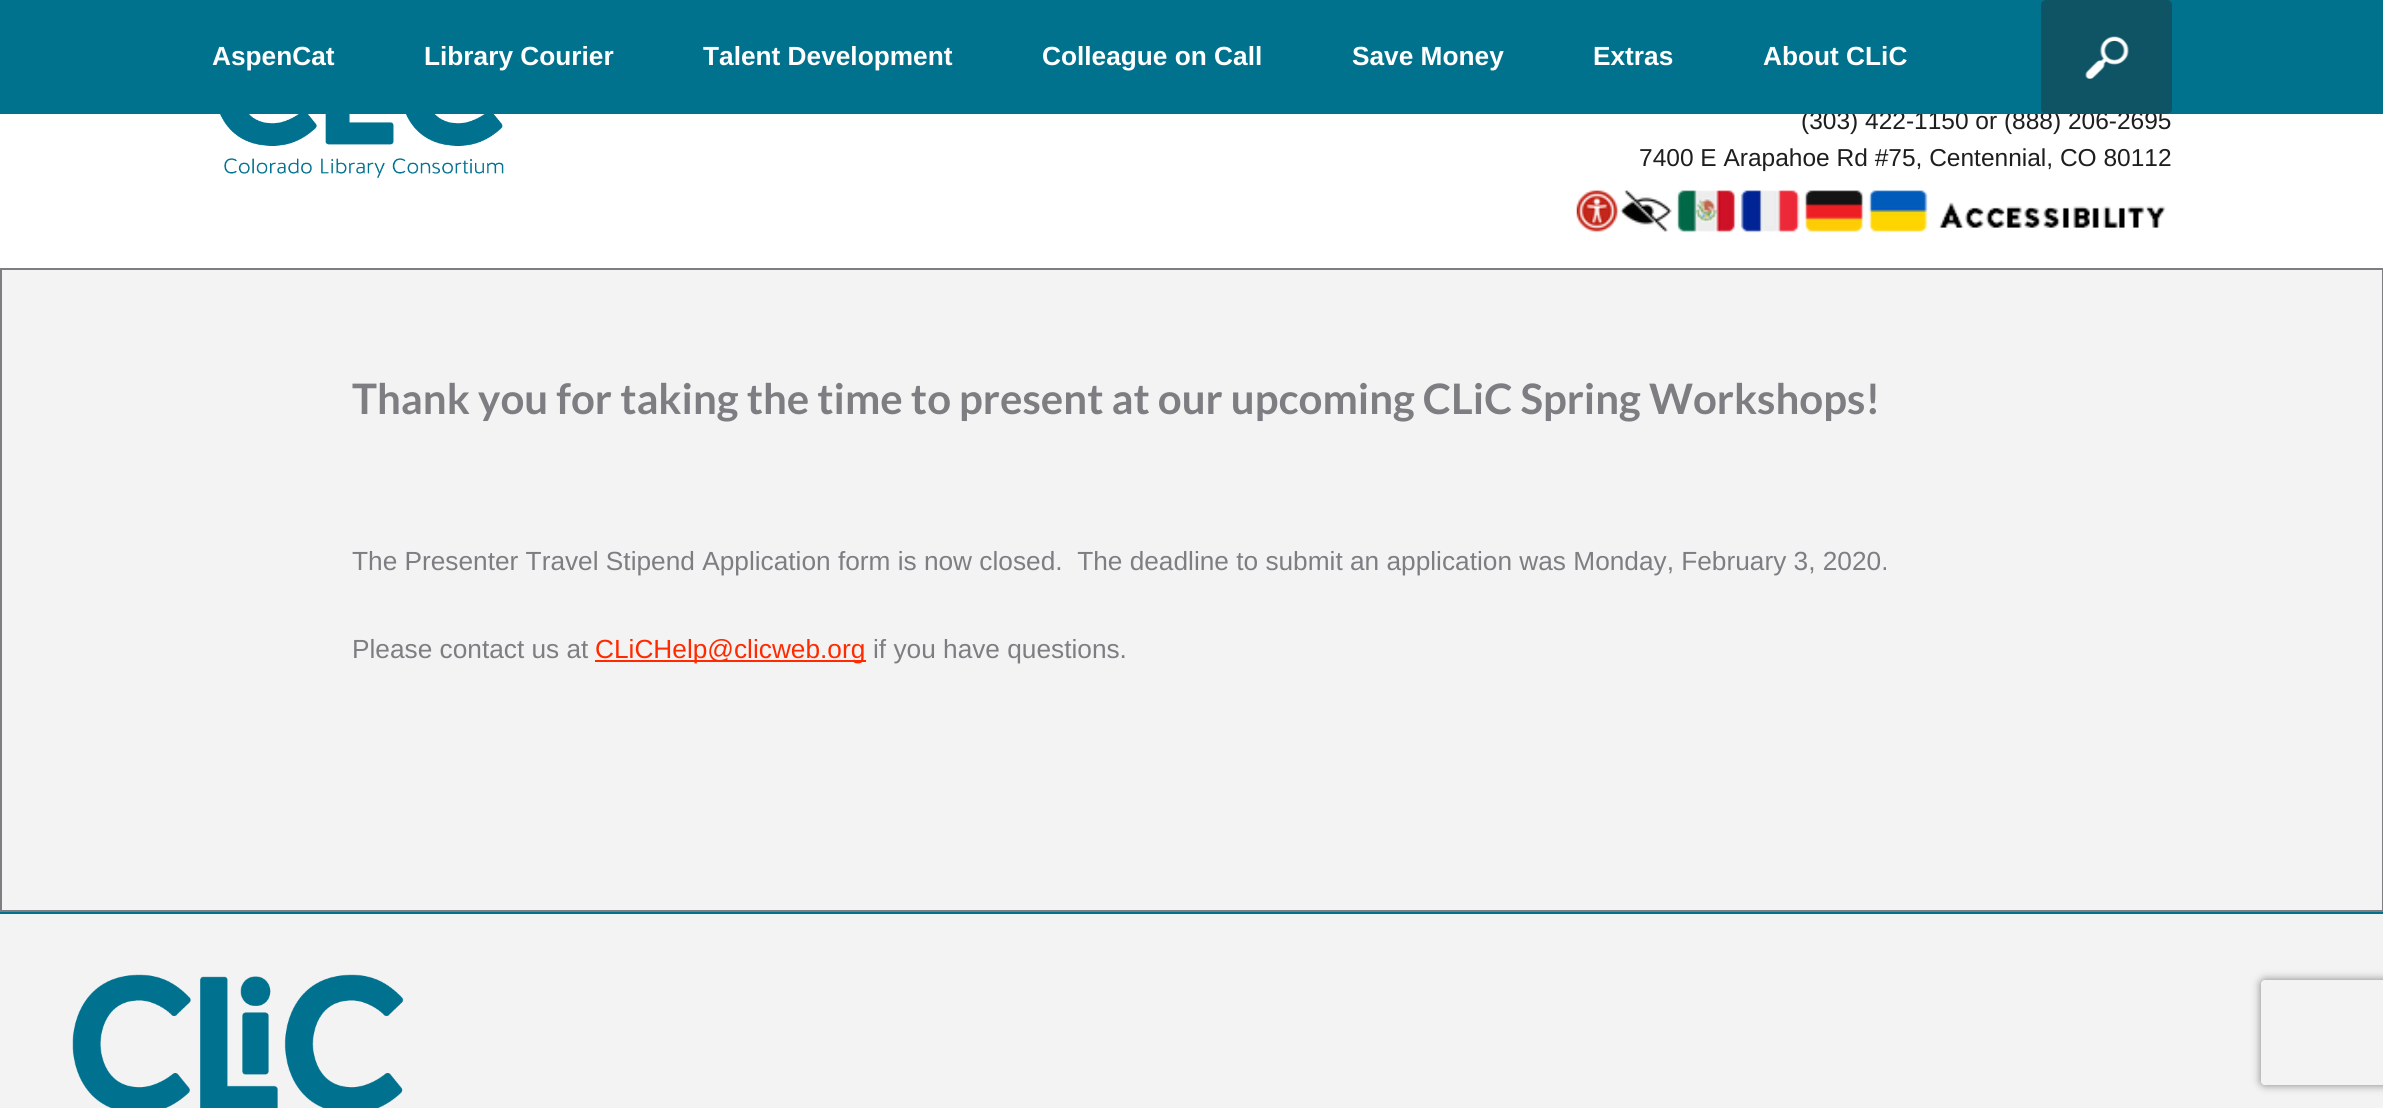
import math
import cairo

surface = cairo.ImageSurface(cairo.FORMAT_RGB24, 2383, 1108)
cr = cairo.Context(surface)
options = cairo.FontOptions()
options.set_hint_metrics(cairo.HINT_METRICS_OFF)
options.set_hint_style(cairo.HINT_STYLE_NONE)
cr.set_font_options(options)
cr.set_miter_limit(4)


def rgb(code):
    cr.set_source_rgb(*(v / 255 for v in bytes.fromhex(code[-6:])))


def rrect(x, y, w, h, r):
    cr.new_sub_path()
    for i, (u, v) in enumerate([(x + w - r, y + h - r), (x + r, y + h - r), (x + r, y + r), (x + w - r, y + r)]):
        cr.arc(u, v, r, i * math.pi / 2, (i + 1) * math.pi / 2)
    cr.close_path()


def soft_shadow(x, y, w, h, r, blur, alpha):
    cr.push_group_with_content(cairo.CONTENT_ALPHA)
    cr.set_operator(cairo.OPERATOR_SOURCE)
    for i in range(15, -16, -2):
        e = blur * i / 6
        if min(w, h) + 2 * e > 0:
            cr.set_source_rgba(0, 0, 0, alpha * math.erfc((i - 1) / 8.5) / 2)
            rrect(x - e, y - e, w + 2 * e, h + 2 * e, max(0, min(r + e + blur * .6, min(w, h) / 2 + e)))
            cr.fill()
    cr.mask(cr.pop_group())


def image(path, x, y, w, h):
    cr.save()
    cr.set_source_surface(cairo.ImageSurface.create_from_png(path), x, y)
    cr.rectangle(x, y, w, h)
    cr.fill()
    cr.restore()


rgb("#ffffff")
cr.paint()
image("img/2.png", 220, 114, 284, 64)
image("img/3.png", 1576, 190, 590, 43)
rgb("#f3f3f3")
cr.rectangle(1, 269, 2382, 642)
cr.fill_preserve()
rgb("#7e7d82")
cr.stroke()
for x, y, w, h, color in [
    (595, 660, 271, 2, "#ff2a00"),
    (0, 914, 2383, 194, "#f3f3f3"),
    (0, 912, 2383, 2, "#00728d"),
]:
    rgb(color)
    cr.rectangle(x, y, w, h)
    cr.fill()
image("img/4.png", 72, 974, 332, 134)
cr.save()
cr.set_fill_rule(cairo.FILL_RULE_EVEN_ODD)
cr.new_path()
cr.move_to(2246, 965)
cr.line_to(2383, 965)
cr.line_to(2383, 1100)
cr.line_to(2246, 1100)
cr.close_path()
cr.move_to(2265, 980)
cr.line_to(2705, 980)
cr.curve_to(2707, 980, 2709, 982, 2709, 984)
cr.line_to(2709, 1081)
cr.curve_to(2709, 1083, 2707, 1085, 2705, 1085)
cr.line_to(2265, 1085)
cr.curve_to(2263, 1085, 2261, 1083, 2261, 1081)
cr.line_to(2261, 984)
cr.curve_to(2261, 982, 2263, 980, 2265, 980)
cr.close_path()
cr.clip()
rgb("#808080")
soft_shadow(2261, 980, 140, 105, 4, 4.5, 1)
cr.restore()
cr.select_font_face("Liberation Sans")
cr.set_font_size(24.5)
rgb("#1e1e1e")
cr.move_to(1801, 129)
cr.show_text("(303) 422-1150 or (888) 206-2695")
rgb("#00728d")
cr.rectangle(0, 0, 2383, 114)
cr.fill()
rgb("#0f5464")
rrect(2041, 0, 131, 114, 5)
cr.fill()
image("img/1.png", 2085, 36, 44, 43)
cr.select_font_face("Liberation Sans", cairo.FONT_SLANT_NORMAL, cairo.FONT_WEIGHT_BOLD)
cr.set_font_size(26.25)
rgb("#ffffff")
for x, y, s in [
    (1763, 65, "About CLiC"),
    (1593, 65, "Extras"),
    (1352, 65, "Save Money"),
    (1042, 65, "Colleague on Call"),
    (703, 65, "Talent Development"),
    (424, 65, "Library Courier"),
    (212, 65, "AspenCat"),
]:
    cr.move_to(x, y)
    cr.show_text(s)
cr.select_font_face("Liberation Sans")
cr.set_font_size(24.5)
rgb("#1e1e1e")
cr.move_to(1639, 166)
cr.show_text("7400 E Arapahoe Rd #75, Centennial, CO 80112")
cr.select_font_face("Lato", cairo.FONT_SLANT_NORMAL, cairo.FONT_WEIGHT_BOLD)
cr.set_font_size(42)
rgb("#7e7d82")
cr.move_to(352, 414)
cr.show_text("Thank you for taking the time to present at our upcoming CLiC Spring Workshops!")
cr.select_font_face("Liberation Sans")
cr.set_font_size(26.25)
cr.move_to(352, 570)
cr.show_text("The Presenter Travel Stipend Application form is now closed.  The deadline to submit an application was Monday, February 3, 2020.")
cr.move_to(352, 658)
cr.show_text("Please contact us at")
rgb("#ff2a00")
cr.move_to(595, 658)
cr.show_text("CLiCHelp@clicweb.org")
rgb("#7e7d82")
cr.move_to(873, 658)
cr.show_text("if you have questions.")
surface.write_to_png("page.png")
